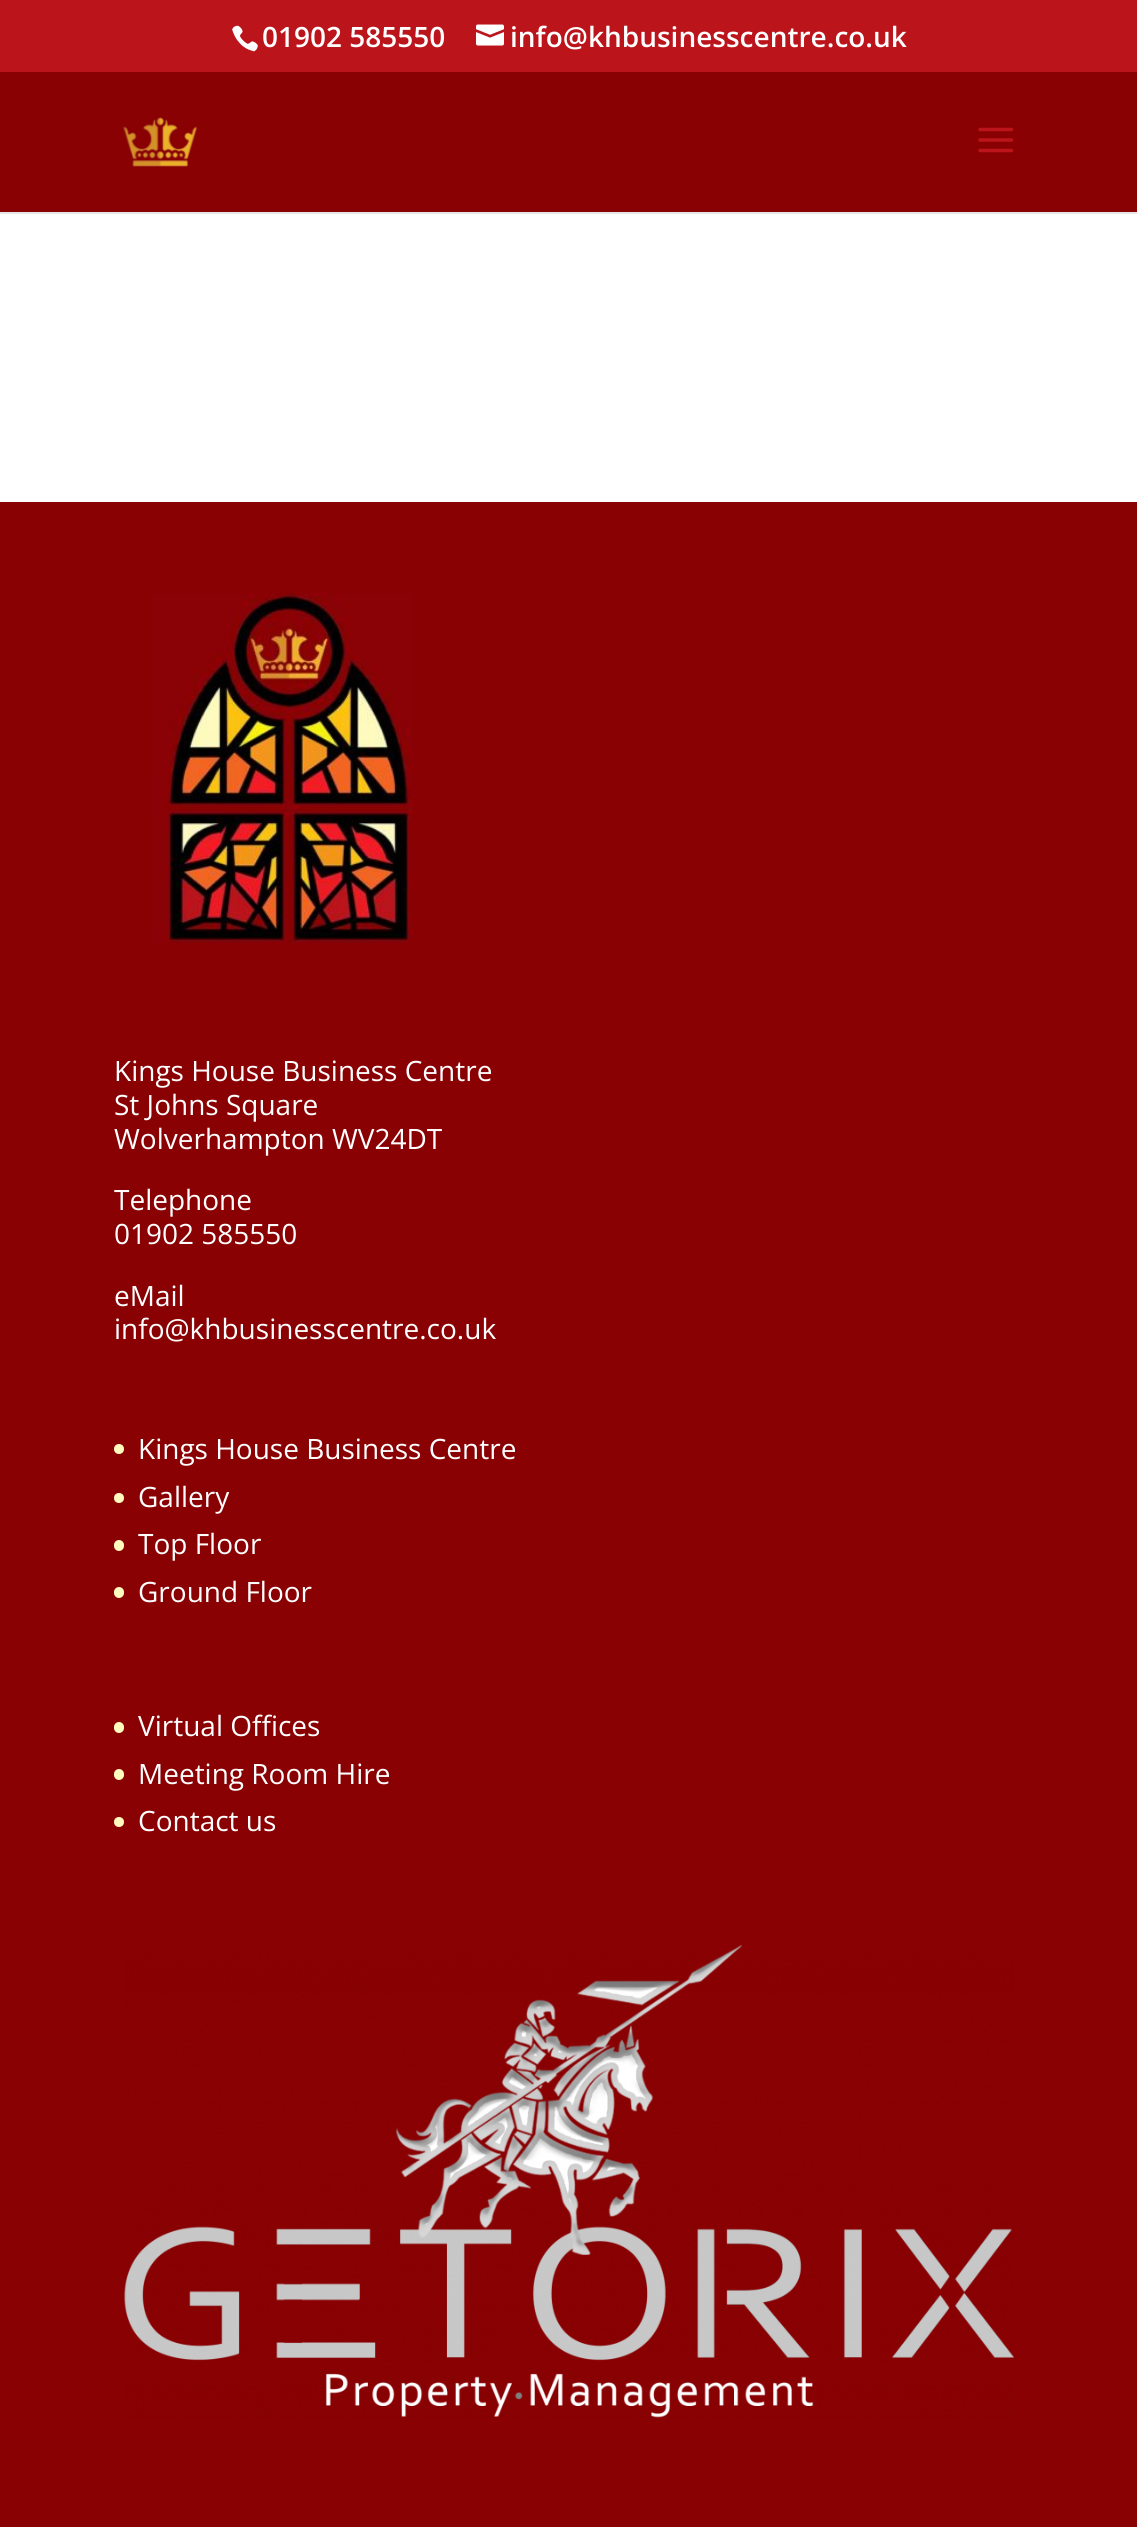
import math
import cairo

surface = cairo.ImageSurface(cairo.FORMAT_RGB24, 1137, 2527)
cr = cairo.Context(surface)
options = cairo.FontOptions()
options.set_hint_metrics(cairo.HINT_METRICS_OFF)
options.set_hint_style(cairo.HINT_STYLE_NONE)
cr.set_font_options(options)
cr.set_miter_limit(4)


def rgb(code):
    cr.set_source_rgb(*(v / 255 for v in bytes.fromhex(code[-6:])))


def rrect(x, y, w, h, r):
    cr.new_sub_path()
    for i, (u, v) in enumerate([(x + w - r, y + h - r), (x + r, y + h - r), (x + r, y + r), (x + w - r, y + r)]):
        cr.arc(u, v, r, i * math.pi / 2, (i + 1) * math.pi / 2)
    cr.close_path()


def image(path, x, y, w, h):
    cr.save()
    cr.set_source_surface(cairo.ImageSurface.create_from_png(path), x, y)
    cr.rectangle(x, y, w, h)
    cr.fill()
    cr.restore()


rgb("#ffffff")
cr.paint()
rgb("#bb141b")
cr.rectangle(0, 0, 1137, 72)
cr.fill()
image("img/1.png", 232, 25, 26, 27)
image("img/2.png", 476, 24, 28, 22)
rgb("#e6e6e6")
cr.new_path()
cr.move_to(0, 212)
cr.line_to(0, 214)
cr.line_to(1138, 214)
cr.line_to(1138, 74)
cr.line_to(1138, 212)
cr.close_path()
cr.fill()
rgb("#890103")
cr.rectangle(0, 72, 1137, 140)
cr.fill()
image("img/3.png", 123, 117, 74, 50)
image("img/4.png", 978, 127, 36, 26)
cr.rectangle(0, 502, 1137, 2025)
cr.fill()
image("img/5.png", 152, 593, 261, 350)
rgb("#fffbbe")
cr.arc(119, 1449, 5, 0, 2 * math.pi)
cr.fill()
cr.arc(119, 1498, 5, 0, 2 * math.pi)
cr.fill()
rrect(114, 1540, 10, 11, 5)
cr.fill()
rrect(114, 1587, 10, 11, 5)
cr.fill()
rrect(114, 1722, 10, 11, 5)
cr.fill()
rrect(114, 1769, 10, 11, 5)
cr.fill()
cr.arc(119, 1822, 5, 0, 2 * math.pi)
cr.fill()
image("img/6.png", 124, 1945, 890, 473)
cr.select_font_face("Open Sans SemiBold")
cr.set_font_size(28)
rgb("#ffffff")
cr.move_to(262, 47)
cr.show_text("01902 585550")
cr.move_to(510, 47)
cr.show_text("info@khbusinesscentre.co.uk")
cr.select_font_face("Open Sans")
for x, y, s in [
    (114, 1081, "Kings House Business Centre"),
    (114, 1115, "St Johns Square"),
    (114, 1149, "Wolverhampton WV24DT"),
    (114, 1210, "Telephone"),
    (114, 1244, "01902 585550"),
    (114, 1306, "eMail"),
    (114, 1339, "info@khbusinesscentre.co.uk"),
    (138, 1459, "Kings House Business Centre"),
    (138, 1507, "Gallery"),
    (138, 1554, "Top Floor"),
    (138, 1602, "Ground Floor"),
    (138, 1736, "Virtual Offices"),
    (138, 1784, "Meeting Room Hire"),
    (138, 1831, "Contact us"),
]:
    cr.move_to(x, y)
    cr.show_text(s)
surface.write_to_png("page.png")
